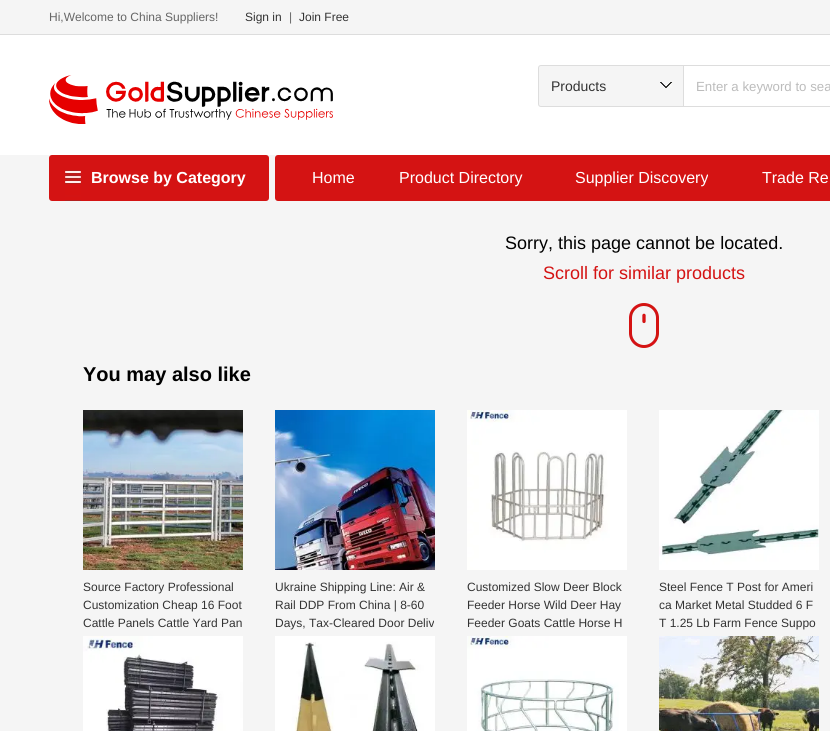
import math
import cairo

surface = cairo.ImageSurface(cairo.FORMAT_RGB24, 830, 731)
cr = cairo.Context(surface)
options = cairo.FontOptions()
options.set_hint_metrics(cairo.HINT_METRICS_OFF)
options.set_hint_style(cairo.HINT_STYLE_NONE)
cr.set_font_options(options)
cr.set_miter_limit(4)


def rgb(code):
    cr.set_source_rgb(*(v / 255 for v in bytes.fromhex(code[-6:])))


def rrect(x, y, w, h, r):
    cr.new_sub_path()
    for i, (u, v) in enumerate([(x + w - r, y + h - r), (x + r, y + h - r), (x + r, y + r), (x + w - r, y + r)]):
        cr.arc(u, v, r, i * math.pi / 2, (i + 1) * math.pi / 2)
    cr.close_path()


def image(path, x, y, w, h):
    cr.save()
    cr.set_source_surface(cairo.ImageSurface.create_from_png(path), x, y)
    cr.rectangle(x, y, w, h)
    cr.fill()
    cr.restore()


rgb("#f5f5f5")
cr.paint()
rgb("#dddddd")
cr.rectangle(0, 34, 830, 1)
cr.fill()
rgb("#ffffff")
cr.rectangle(0, 35, 830, 120)
cr.fill()
image("img/1.png", 49, 75, 284, 49)
cr.rectangle(683.5, 65.5, 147, 41)
rgb("#dddddd")
cr.set_line_width(1)
cr.stroke()
rgb("#f5f5f5")
cr.new_path()
cr.move_to(541, 65.5)
cr.line_to(683.5, 65.5)
cr.line_to(683.5, 106.5)
cr.line_to(541, 106.5)
cr.curve_to(539.5, 106.5, 538.5, 105.5, 538.5, 104)
cr.line_to(538.5, 68)
cr.curve_to(538.5, 66.5, 539.5, 65.5, 541, 65.5)
cr.close_path()
cr.fill_preserve()
rgb("#dddddd")
cr.stroke()
image("img/2.png", 660, 82, 13, 6)
rgb("#d41313")
rrect(49, 155, 220, 46, 3)
cr.fill()
image("img/3.png", 65, 170, 16, 31)
rrect(275, 155, 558, 46, 3)
cr.fill()
image("img/4.png", 629, 303, 30, 45)
image("img/5.png", 83, 410, 160, 160)
image("img/6.png", 275, 410, 160, 160)
image("img/7.png", 467, 410, 160, 160)
image("img/8.png", 659, 410, 160, 160)
image("img/9.png", 83, 636, 160, 95)
image("img/10.png", 275, 636, 160, 95)
image("img/11.png", 467, 636, 160, 95)
image("img/12.png", 659, 636, 160, 95)
cr.select_font_face("Liberation Sans")
cr.set_font_size(12)
rgb("#666666")
cr.move_to(49, 21)
cr.show_text("Hi,Welcome to China Suppliers!")
rgb("#333333")
cr.move_to(245, 21)
cr.show_text("Sign in")
rgb("#666666")
cr.move_to(289, 21)
cr.show_text("|")
rgb("#333333")
cr.move_to(299, 21)
cr.show_text("Join Free")
cr.set_font_size(14)
cr.move_to(551, 91)
cr.show_text("Products")
cr.set_font_size(13.25)
rgb("#bcbcbc")
cr.move_to(696, 91)
cr.show_text("Enter a keyword to sea")
cr.select_font_face("Liberation Sans", cairo.FONT_SLANT_NORMAL, cairo.FONT_WEIGHT_BOLD)
cr.set_font_size(16)
rgb("#ffffff")
cr.move_to(91, 183)
cr.show_text("Browse by Category")
cr.select_font_face("Liberation Sans")
for x, y, s in [
    (312, 183, "Home"),
    (399, 183, "Product Directory"),
    (575, 183, "Supplier Discovery"),
    (762, 183, "Trade Re"),
]:
    cr.move_to(x, y)
    cr.show_text(s)
cr.set_font_size(18)
rgb("#000000")
cr.move_to(505, 249)
cr.show_text("Sorry, this page cannot be located.")
rgb("#d41313")
cr.move_to(543, 279)
cr.show_text("Scroll for similar products")
cr.select_font_face("Liberation Sans", cairo.FONT_SLANT_NORMAL, cairo.FONT_WEIGHT_BOLD)
cr.set_font_size(20)
rgb("#000000")
cr.move_to(83, 381)
cr.show_text("You may also like")
cr.select_font_face("Liberation Sans")
cr.set_font_size(12)
rgb("#333333")
for x, y, s in [
    (83, 591, "Source Factory Professional"),
    (83, 609, "Customization Cheap 16 Foot"),
    (83, 627, "Cattle Panels Cattle Yard Pan"),
    (275, 591, "Ukraine Shipping Line: Air &"),
    (275, 609, "Rail DDP From China | 8-60"),
    (275, 627, "Days, Tax-Cleared Door Deliv"),
    (467, 591, "Customized Slow Deer Block"),
    (467, 609, "Feeder Horse Wild Deer Hay"),
    (467, 627, "Feeder Goats Cattle Horse H"),
    (659, 591, "Steel Fence T Post for Ameri"),
    (659, 609, "ca Market Metal Studded 6 F"),
    (659, 627, "T 1.25 Lb Farm Fence Suppo"),
]:
    cr.move_to(x, y)
    cr.show_text(s)
surface.write_to_png("page.png")
